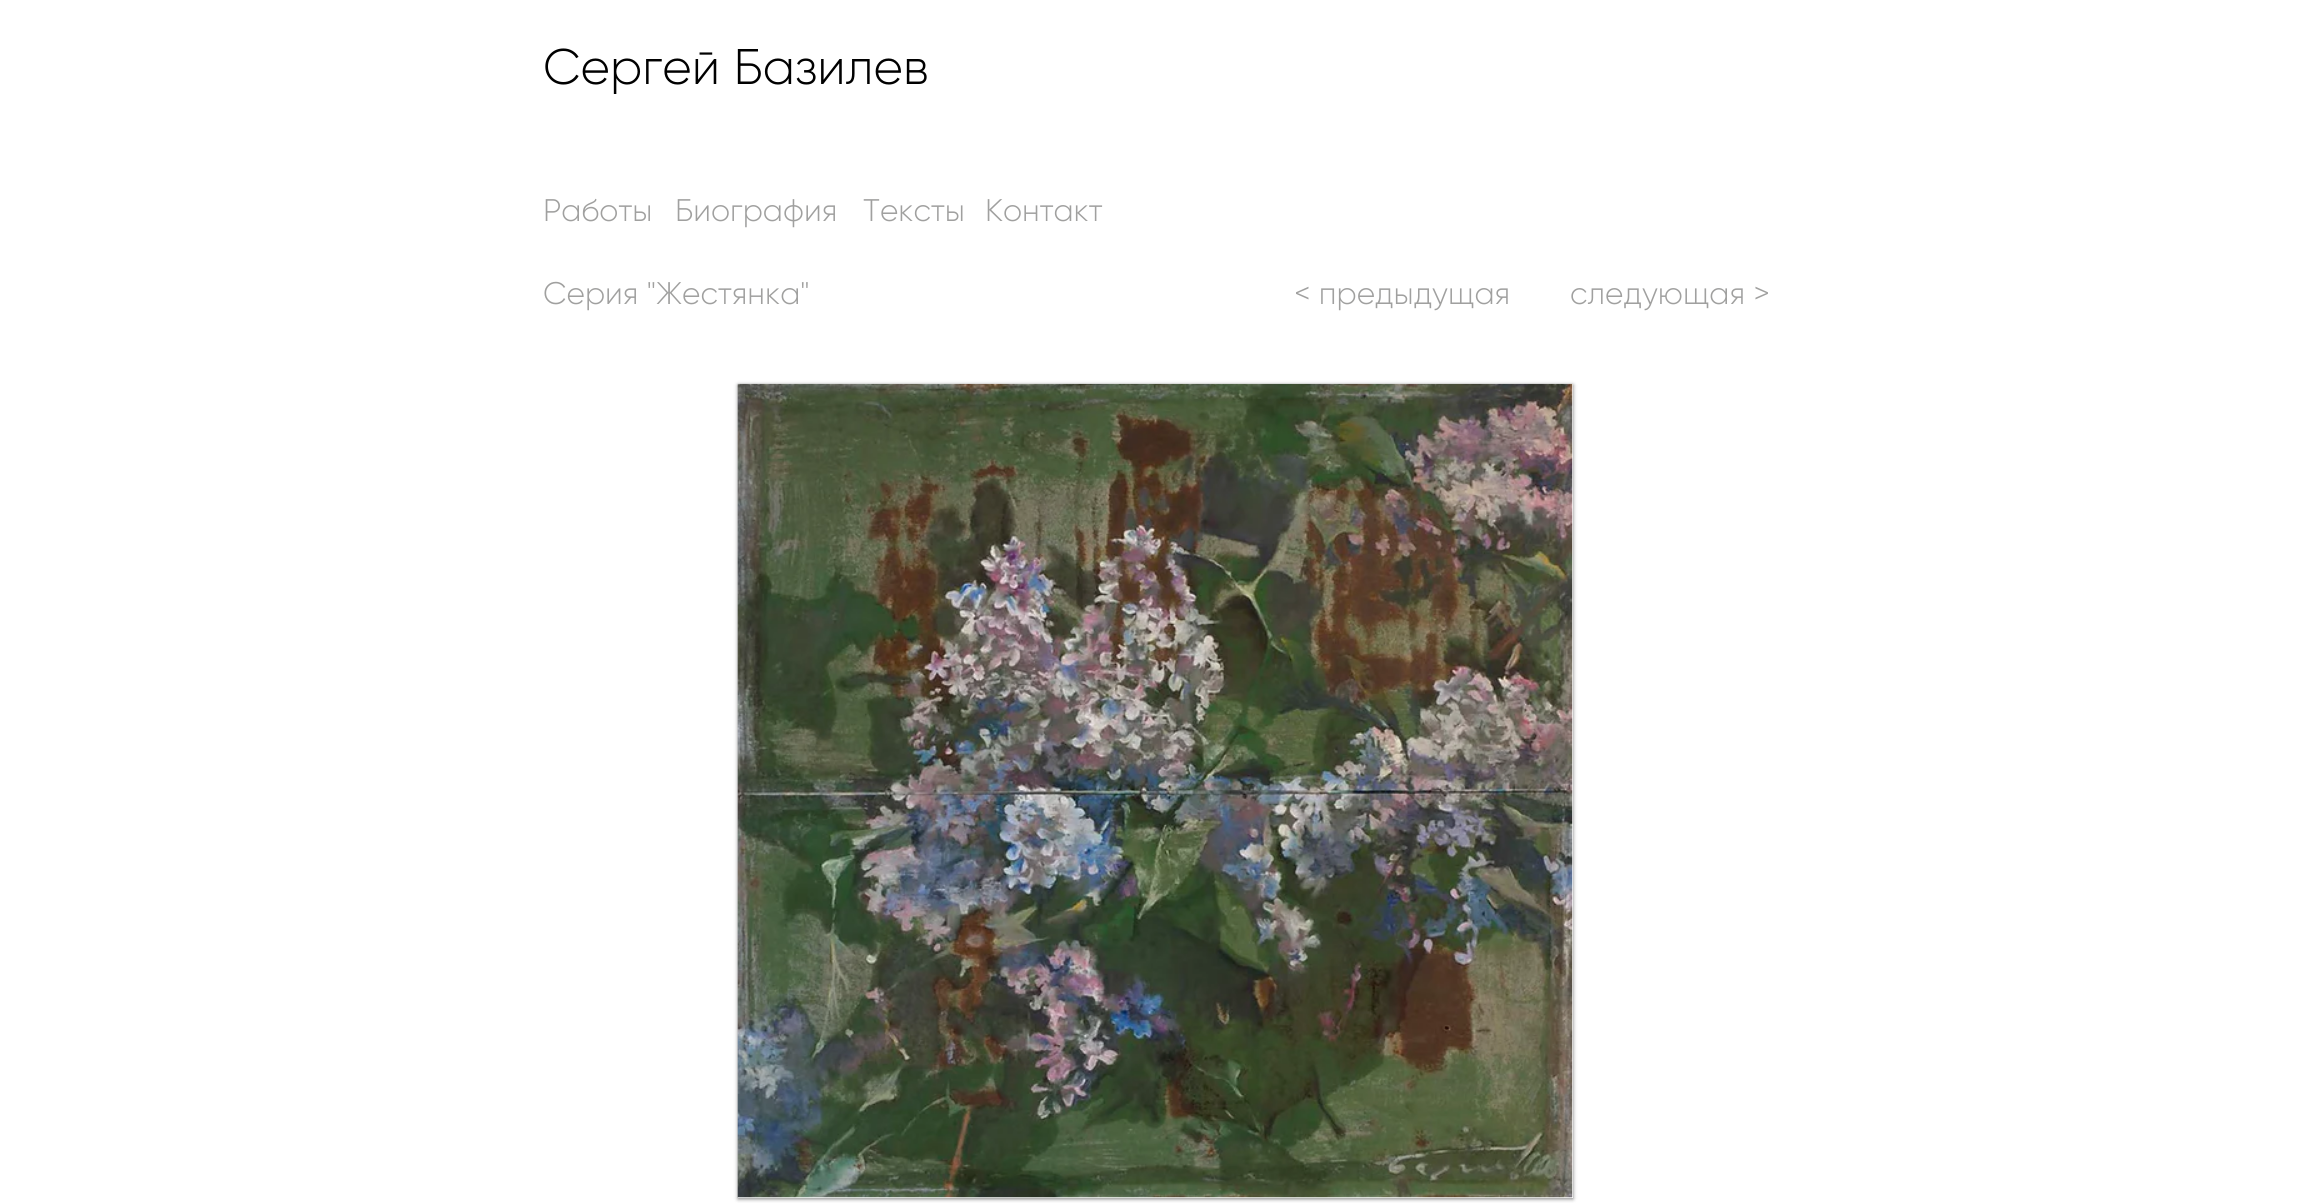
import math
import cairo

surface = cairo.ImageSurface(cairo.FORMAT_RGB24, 2310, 1203)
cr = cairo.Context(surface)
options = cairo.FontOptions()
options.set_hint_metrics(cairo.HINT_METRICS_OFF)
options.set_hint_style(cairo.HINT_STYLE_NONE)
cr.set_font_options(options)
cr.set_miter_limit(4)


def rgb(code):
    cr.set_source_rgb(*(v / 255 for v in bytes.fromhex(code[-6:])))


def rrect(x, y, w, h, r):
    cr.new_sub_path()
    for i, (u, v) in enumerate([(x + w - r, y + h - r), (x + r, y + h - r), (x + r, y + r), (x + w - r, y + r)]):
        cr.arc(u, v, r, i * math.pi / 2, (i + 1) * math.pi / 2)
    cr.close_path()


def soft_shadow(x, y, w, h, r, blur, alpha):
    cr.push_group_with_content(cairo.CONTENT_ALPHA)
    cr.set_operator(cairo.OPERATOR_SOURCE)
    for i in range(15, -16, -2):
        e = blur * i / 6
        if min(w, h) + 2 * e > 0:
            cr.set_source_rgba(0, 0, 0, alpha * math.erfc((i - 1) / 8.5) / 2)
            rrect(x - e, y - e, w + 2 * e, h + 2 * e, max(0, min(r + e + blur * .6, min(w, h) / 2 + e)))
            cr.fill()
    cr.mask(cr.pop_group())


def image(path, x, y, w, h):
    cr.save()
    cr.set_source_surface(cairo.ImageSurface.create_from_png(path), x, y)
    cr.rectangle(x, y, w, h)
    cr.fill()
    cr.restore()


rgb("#ffffff")
cr.paint()
rgb("#000000")
soft_shadow(738, 385, 835, 814, 0, 2, 0.5)
rgb("#ffffff")
cr.rectangle(738, 384, 835, 814)
cr.fill()
image("img/1.png", 737, 383, 836, 815)
cr.select_font_face("Gilroy Light")
cr.set_font_size(50)
rgb("#000000")
cr.move_to(543, 84)
cr.show_text("Сергей Базилев")
cr.set_font_size(31.25)
rgb("#a0a09f")
for x, y, s in [
    (543, 221, "Работы"),
    (675, 221, "Биография"),
    (863, 221, "Тексты"),
    (985, 221, "Контакт"),
    (543, 304, "Серия \"Жестянка\""),
    (1294, 304, "< предыдущая"),
    (1570, 304, "следующая >"),
]:
    cr.move_to(x, y)
    cr.show_text(s)
surface.write_to_png("page.png")
